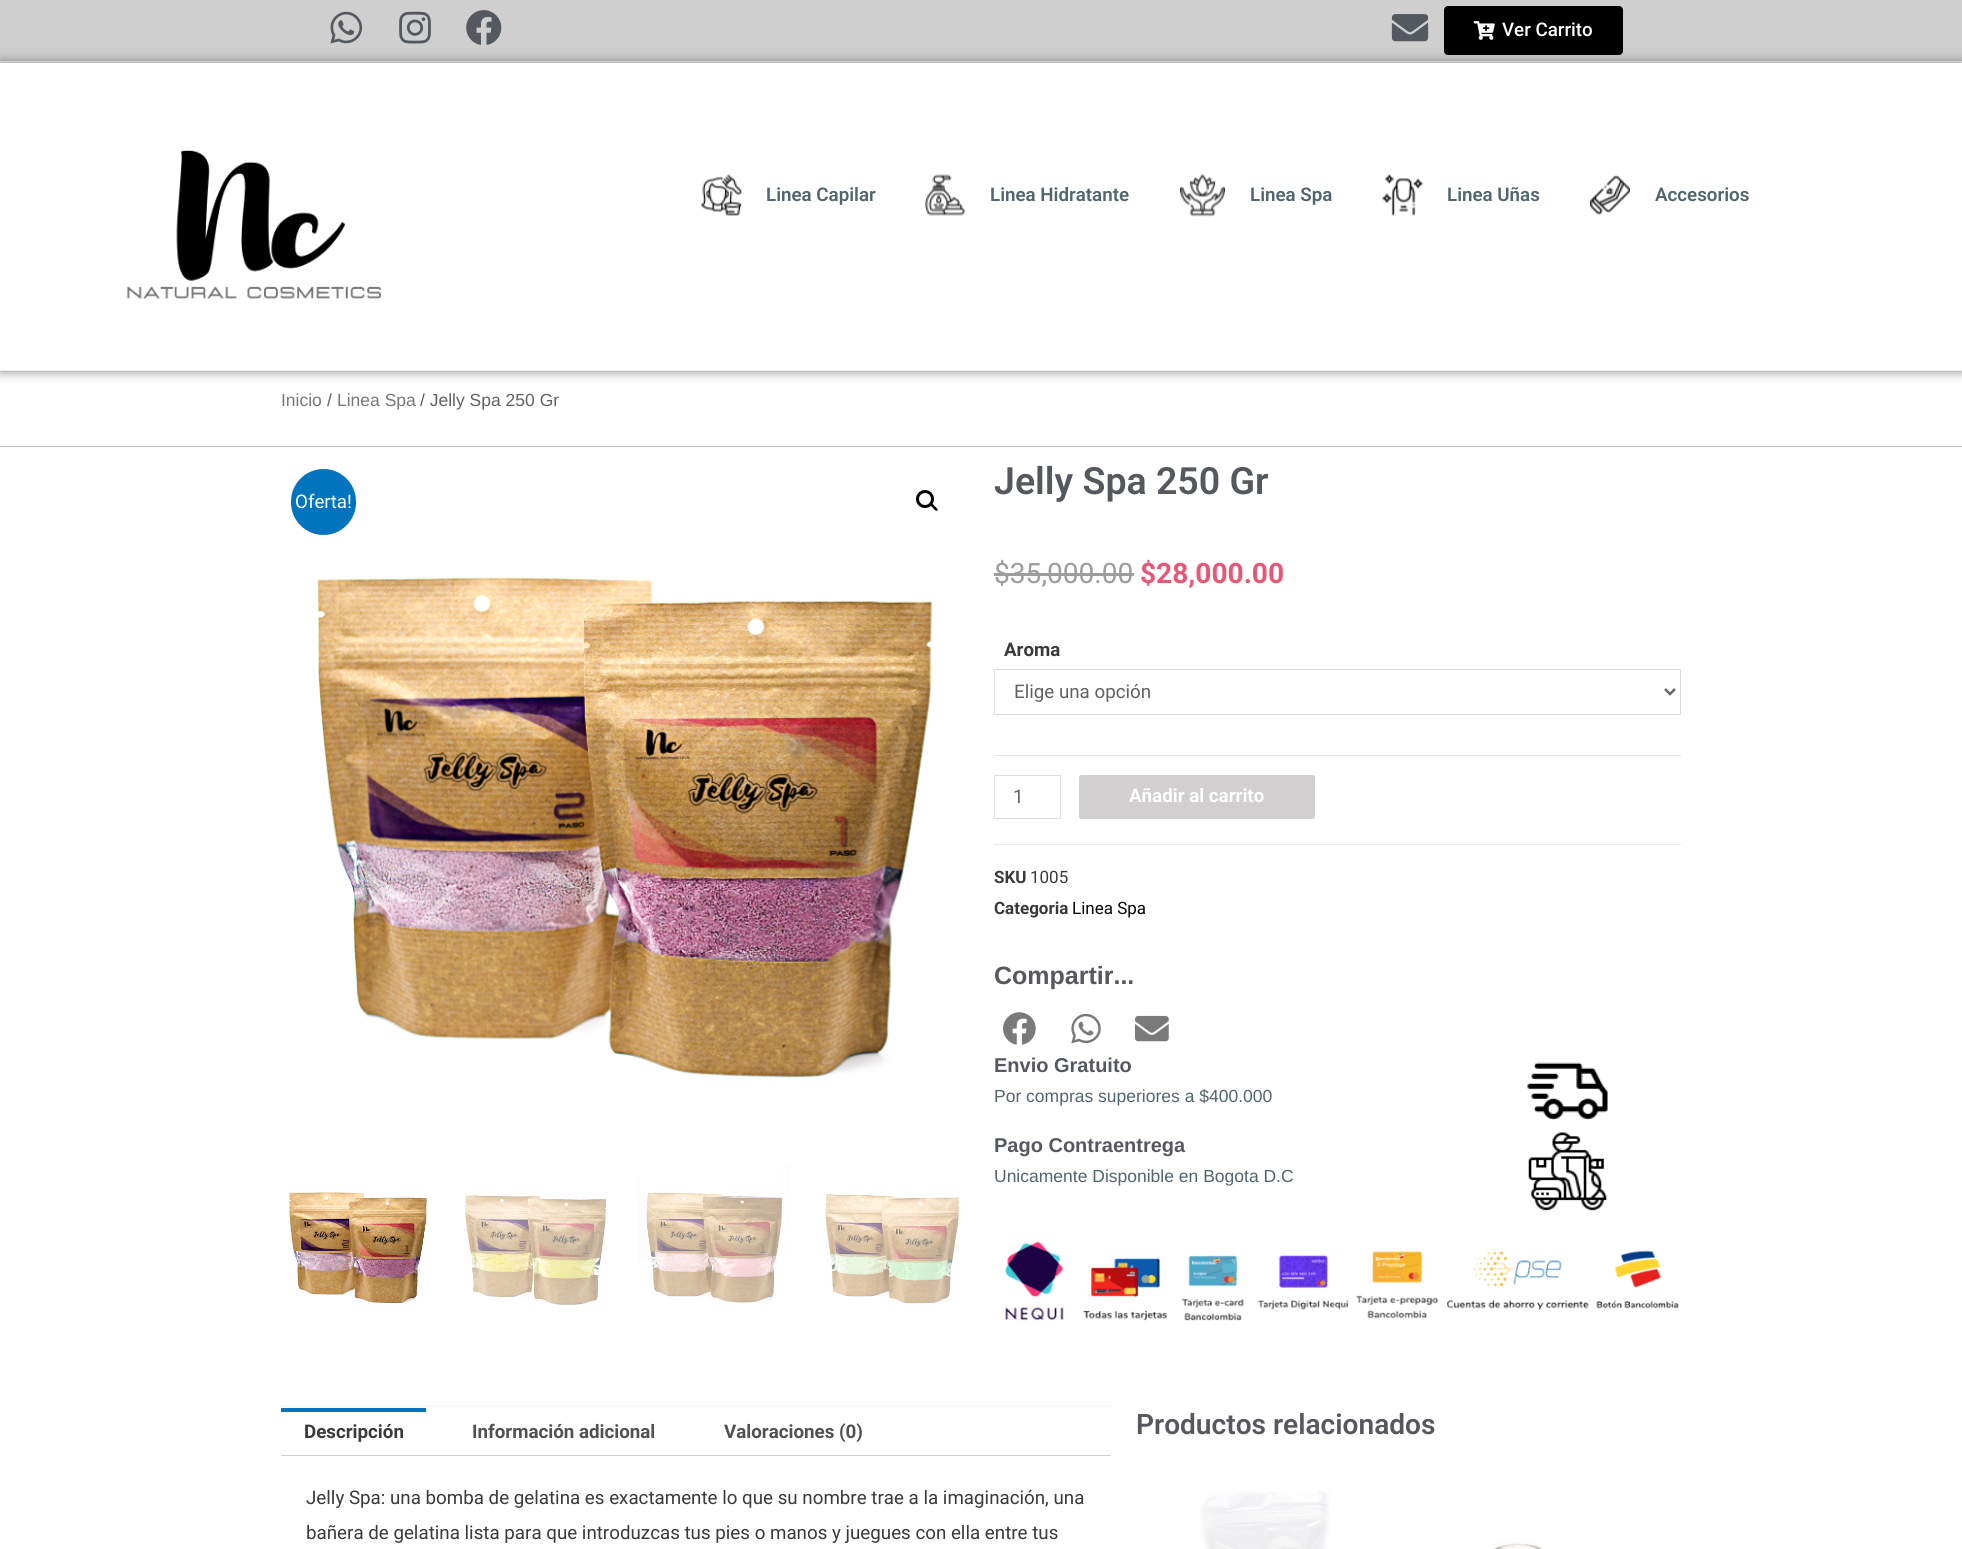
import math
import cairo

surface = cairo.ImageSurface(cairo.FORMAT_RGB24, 1962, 1549)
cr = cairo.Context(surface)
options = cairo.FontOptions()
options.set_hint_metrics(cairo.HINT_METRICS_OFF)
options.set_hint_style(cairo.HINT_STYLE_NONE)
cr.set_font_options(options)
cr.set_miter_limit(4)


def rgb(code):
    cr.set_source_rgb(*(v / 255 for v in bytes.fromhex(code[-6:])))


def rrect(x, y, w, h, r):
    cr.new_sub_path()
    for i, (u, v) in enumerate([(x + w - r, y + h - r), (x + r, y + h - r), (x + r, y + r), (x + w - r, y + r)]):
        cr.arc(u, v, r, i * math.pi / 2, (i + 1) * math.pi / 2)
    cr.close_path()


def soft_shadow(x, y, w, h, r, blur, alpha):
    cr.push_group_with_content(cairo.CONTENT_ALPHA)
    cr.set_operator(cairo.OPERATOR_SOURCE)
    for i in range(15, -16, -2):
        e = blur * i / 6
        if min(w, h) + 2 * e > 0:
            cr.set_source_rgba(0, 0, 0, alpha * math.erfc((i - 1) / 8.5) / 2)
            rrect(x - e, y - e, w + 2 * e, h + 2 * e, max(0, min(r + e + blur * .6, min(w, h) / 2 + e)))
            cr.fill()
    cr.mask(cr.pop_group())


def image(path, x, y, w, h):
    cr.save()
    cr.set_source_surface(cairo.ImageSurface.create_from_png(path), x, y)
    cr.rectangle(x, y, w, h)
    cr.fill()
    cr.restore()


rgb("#ffffff")
cr.paint()
rgb("#cfcfcf")
cr.rectangle(0, 0, 1962, 61)
cr.fill()
image("img/1.png", 330, 11, 33, 33)
image("img/2.png", 399, 11, 32, 33)
image("img/3.png", 466, 10, 36, 35)
image("img/4.png", 1391, 14, 38, 28)
rgb("#000000")
rrect(1444, 6, 179, 49, 4)
cr.fill()
image("img/5.png", 1473, 21, 22, 19)
rgb("#efeeee")
cr.rectangle(0, 370, 1962, 1)
cr.fill()
cr.save()
cr.set_fill_rule(cairo.FILL_RULE_EVEN_ODD)
cr.new_path()
cr.move_to(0, 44)
cr.line_to(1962, 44)
cr.line_to(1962, 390)
cr.line_to(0, 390)
cr.close_path()
cr.move_to(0, 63)
cr.line_to(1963, 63)
cr.line_to(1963, 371)
cr.line_to(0, 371)
cr.close_path()
cr.clip()
rgb("#000000")
soft_shadow(0, 63, 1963, 308, 0, 6, 0.5)
cr.restore()
image("img/6.png", 126, 150, 255, 149)
image("img/7.png", 701, 174, 41, 42)
image("img/8.png", 925, 174, 40, 42)
image("img/9.png", 1180, 174, 45, 43)
image("img/10.png", 1382, 174, 41, 42)
image("img/11.png", 1590, 175, 40, 40)
rgb("#c2bcbc")
cr.rectangle(0, 446, 1962, 1)
cr.fill()
cr.arc(925, 499, 7.5, 0, 2 * math.pi)
rgb("#000000")
cr.set_line_width(3)
cr.stroke()
cr.new_path()
cr.move_to(930, 503.5)
cr.curve_to(931.5, 502, 934, 505, 934.5, 506)
cr.curve_to(935.5, 507, 938.5, 509, 937.5, 510.5)
cr.curve_to(936, 512, 933.5, 508.5, 933, 508)
cr.curve_to(932, 507, 929, 505, 930, 503.5)
cr.close_path()
cr.fill()
image("img/12.png", 317, 577, 616, 501)
image("img/13.png", 289, 1192, 138, 112)
image("img/14.png", 465, 1195, 142, 110)
image("img/15.png", 638, 1167, 153, 136)
image("img/16.png", 825, 1194, 134, 110)
rgb("#0274be")
rrect(291, 469, 65, 66, 32.5)
cr.fill()
rgb("#9d9d9d")
cr.rectangle(994, 573, 140, 3)
cr.fill()
rgb("#e6e6e6")
cr.rectangle(994, 755, 687, 1)
cr.fill()
cr.rectangle(994.5, 669.5, 686, 45)
rgb("#dddddd")
cr.set_line_width(1)
cr.stroke()
cr.new_path()
cr.move_to(1665, 689)
cr.line_to(1670, 694)
cr.line_to(1675, 689)
rgb("#666666")
cr.set_line_width(2.5)
cr.stroke()
cr.rectangle(994.5, 775.5, 66, 43)
rgb("#dddddd")
cr.set_line_width(1)
cr.stroke()
rgb("#d1cfd0")
rrect(1079, 775, 236, 44, 2.5)
cr.fill()
rgb("#ebebeb")
cr.rectangle(994, 844, 687, 1)
cr.fill()
image("img/17.png", 1003, 1012, 33, 33)
image("img/18.png", 1071, 1013, 30, 31)
image("img/19.png", 1135, 1015, 34, 27)
image("img/20.png", 1527, 1062, 81, 58)
image("img/21.png", 1528, 1132, 79, 79)
image("img/22.png", 1005, 1241, 674, 80)
for x, y, w, h, color in [
    (281, 1406, 830, 1, "#f2f2f2"),
    (281, 1408, 145, 4, "#0274be"),
    (281, 1455, 830, 1, "#d3ced2"),
]:
    rgb(color)
    cr.rectangle(x, y, w, h)
    cr.fill()
image("img/23.png", 1200, 1491, 130, 58)
image("img/24.png", 1491, 1542, 51, 7)
cr.select_font_face("Roboto Medium")
cr.set_font_size(18.75)
rgb("#ffffff")
cr.move_to(1502, 36)
cr.show_text("Ver Carrito")
cr.select_font_face("Roboto SemiBold")
rgb("#50656e")
for x, y, s in [
    (766, 201, "Linea Capilar"),
    (990, 201, "Linea Hidratante"),
    (1250, 201, "Linea Spa"),
    (1447, 201, "Linea Uñas"),
    (1655, 201, "Accesorios"),
]:
    cr.move_to(x, y)
    cr.show_text(s)
cr.select_font_face("Liberation Sans")
cr.set_font_size(17.5)
rgb("#777777")
cr.move_to(281, 406)
cr.show_text("Inicio")
rgb("#626161")
cr.move_to(327, 406)
cr.show_text("/")
rgb("#777777")
cr.move_to(337, 406)
cr.show_text("Linea Spa")
rgb("#626161")
cr.move_to(420, 406)
cr.show_text("/ Jelly Spa 250 Gr")
cr.select_font_face("Roboto")
cr.set_font_size(18.75)
rgb("#ffffff")
cr.move_to(295, 508)
cr.show_text("Oferta!")
cr.select_font_face("Roboto SemiBold")
cr.set_font_size(37.5)
rgb("#54595f")
cr.move_to(994, 494)
cr.show_text("Jelly Spa 250 Gr")
cr.select_font_face("Roboto")
cr.set_font_size(28.1)
rgb("#9d9d9d")
cr.move_to(994, 583)
cr.show_text("$35,000.00")
cr.select_font_face("Roboto", cairo.FONT_SLANT_NORMAL, cairo.FONT_WEIGHT_BOLD)
rgb("#e55976")
cr.move_to(1140, 583)
cr.show_text("$28,000.00")
cr.set_font_size(18.75)
rgb("#3a3a3a")
cr.move_to(1004, 656)
cr.show_text("Aroma")
cr.select_font_face("Roboto")
rgb("#626161")
cr.move_to(1014, 698)
cr.show_text("Elige una opción")
cr.move_to(1013, 803)
cr.show_text("1")
cr.select_font_face("Roboto", cairo.FONT_SLANT_NORMAL, cairo.FONT_WEIGHT_BOLD)
rgb("#ffffff")
cr.move_to(1129, 802)
cr.show_text("Añadir al carrito")
cr.set_font_size(17)
rgb("#3a3a3a")
cr.move_to(994, 883)
cr.show_text("SKU")
cr.select_font_face("Roboto")
cr.move_to(1030, 883)
cr.show_text("1005")
cr.select_font_face("Roboto", cairo.FONT_SLANT_NORMAL, cairo.FONT_WEIGHT_BOLD)
cr.move_to(994, 914)
cr.show_text("Categoria")
cr.select_font_face("Roboto")
rgb("#070607")
cr.move_to(1072, 914)
cr.show_text("Linea Spa")
cr.select_font_face("Liberation Sans", cairo.FONT_SLANT_NORMAL, cairo.FONT_WEIGHT_BOLD)
cr.set_font_size(25)
rgb("#54595f")
cr.move_to(994, 984)
cr.show_text("Compartir...")
cr.set_font_size(20)
cr.move_to(994, 1072)
cr.show_text("Envio Gratuito")
cr.select_font_face("Liberation Sans")
cr.set_font_size(17.5)
rgb("#50656e")
cr.move_to(994, 1102)
cr.show_text("Por compras superiores a $400.000")
cr.select_font_face("Liberation Sans", cairo.FONT_SLANT_NORMAL, cairo.FONT_WEIGHT_BOLD)
cr.set_font_size(20)
rgb("#54595f")
cr.move_to(994, 1152)
cr.show_text("Pago Contraentrega")
cr.select_font_face("Liberation Sans")
cr.set_font_size(17.5)
rgb("#50656e")
cr.move_to(994, 1182)
cr.show_text("Unicamente Disponible en Bogota D.C")
cr.select_font_face("Roboto", cairo.FONT_SLANT_NORMAL, cairo.FONT_WEIGHT_BOLD)
cr.set_font_size(18.75)
rgb("#3a3a3a")
cr.move_to(304, 1438)
cr.show_text("Descripción")
rgb("#515151")
cr.move_to(472, 1438)
cr.show_text("Información adicional")
cr.move_to(724, 1438)
cr.show_text("Valoraciones (0)")
cr.select_font_face("Roboto")
rgb("#3a3a3a")
cr.move_to(306, 1504)
cr.show_text("Jelly Spa: una bomba de gelatina es exactamente lo que su nombre trae a la imaginación, una")
cr.move_to(306, 1539)
cr.show_text("bañera de gelatina lista para que introduzcas tus pies o manos y juegues con ella entre tus")
cr.select_font_face("Roboto SemiBold")
cr.set_font_size(28.1)
rgb("#54595f")
cr.move_to(1136, 1434)
cr.show_text("Productos relacionados")
surface.write_to_png("page.png")
